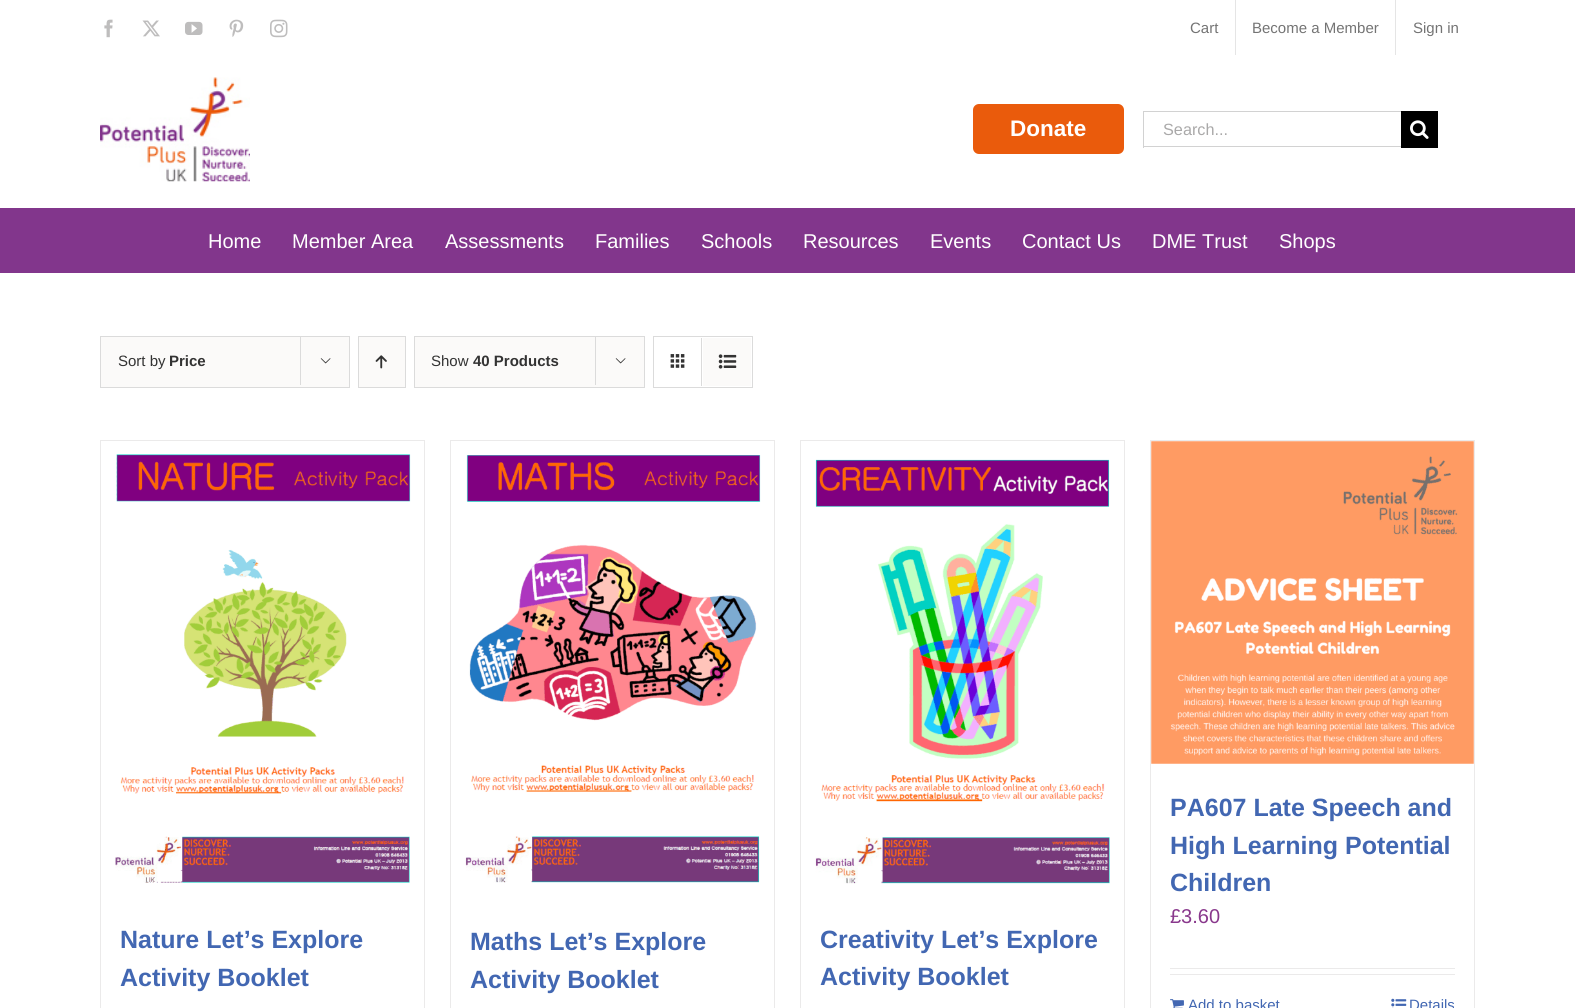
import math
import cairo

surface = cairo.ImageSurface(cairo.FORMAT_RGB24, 1575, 1008)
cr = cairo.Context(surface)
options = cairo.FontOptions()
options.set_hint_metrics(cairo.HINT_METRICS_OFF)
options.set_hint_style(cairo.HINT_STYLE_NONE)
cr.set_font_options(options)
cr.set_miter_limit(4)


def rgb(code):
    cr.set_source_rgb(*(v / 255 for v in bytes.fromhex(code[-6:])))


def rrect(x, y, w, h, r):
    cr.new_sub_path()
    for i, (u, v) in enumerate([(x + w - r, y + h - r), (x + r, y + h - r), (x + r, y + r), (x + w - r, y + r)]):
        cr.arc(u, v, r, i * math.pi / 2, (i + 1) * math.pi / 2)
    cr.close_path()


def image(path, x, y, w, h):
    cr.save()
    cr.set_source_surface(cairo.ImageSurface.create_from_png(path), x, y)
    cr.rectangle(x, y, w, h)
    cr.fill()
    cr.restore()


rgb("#ffffff")
cr.paint()
image("img/1.png", 104, 19, 9, 19)
image("img/2.png", 142, 20, 18, 17)
image("img/3.png", 185, 21, 18, 14)
image("img/4.png", 229, 19, 15, 18)
image("img/5.png", 270, 19, 18, 19)
rgb("#e5e5e5")
cr.rectangle(1235, 0, 1, 55)
cr.fill()
cr.rectangle(1395, 0, 1, 55)
cr.fill()
image("img/6.png", 100, 77, 150, 105)
rgb("#ea5b0c")
rrect(973, 104, 151, 50, 6)
cr.fill()
for x, y, w, h, color in [
    (1143, 111, 258, 1, "#d2d2d2"),
    (1143, 146, 258, 1, "#d2d2d2"),
    (1143, 111, 1, 37, "#d2d2d2"),
    (1401, 111, 37, 37, "#000000"),
]:
    rgb(color)
    cr.rectangle(x, y, w, h)
    cr.fill()
image("img/7.png", 1410, 120, 19, 19)
rgb("#82368c")
cr.rectangle(0, 208, 1575, 65)
cr.fill()
rgb("#fbfaf9")
cr.rectangle(100.5, 336.5, 249, 51)
cr.fill_preserve()
rgb("#dbdbdb")
cr.set_line_width(1)
cr.stroke()
cr.rectangle(300, 336, 1, 49)
cr.fill()
image("img/8.png", 320, 358, 11, 6)
rgb("#fbfaf9")
cr.rectangle(358.5, 336.5, 47, 51)
cr.fill_preserve()
rgb("#dbdbdb")
cr.stroke()
image("img/9.png", 375, 355, 12, 14)
rgb("#fbfaf9")
cr.rectangle(414.5, 336.5, 230, 51)
cr.fill_preserve()
rgb("#dbdbdb")
cr.stroke()
cr.rectangle(595, 336, 1, 49)
cr.fill()
image("img/8.png", 615, 358, 11, 6)
cr.rectangle(653.5, 336.5, 99, 51)
cr.stroke()
cr.rectangle(701, 338, 1, 48)
cr.fill()
image("img/10.png", 670, 354, 15, 14)
rgb("#fbfaf9")
cr.rectangle(703, 338, 48, 48)
cr.fill()
image("img/11.png", 718, 354, 19, 15)
for x, y, w, h, color in [
    (100, 440, 325, 1, "#ebeaea"),
    (424, 440, 1, 568, "#ebeaea"),
    (100, 440, 1, 568, "#ebeaea"),
]:
    rgb(color)
    cr.rectangle(x, y, w, h)
    cr.fill()
image("img/12.png", 115, 454, 296, 429)
for x, y, w, h, color in [
    (450, 440, 325, 1, "#ebeaea"),
    (774, 440, 1, 568, "#ebeaea"),
    (450, 440, 1, 568, "#ebeaea"),
]:
    rgb(color)
    cr.rectangle(x, y, w, h)
    cr.fill()
image("img/13.png", 465, 455, 296, 428)
for x, y, w, h, color in [
    (800, 440, 325, 1, "#ebeaea"),
    (1124, 440, 1, 568, "#ebeaea"),
    (800, 440, 1, 568, "#ebeaea"),
]:
    rgb(color)
    cr.rectangle(x, y, w, h)
    cr.fill()
image("img/14.png", 815, 459, 295, 425)
for x, y, w, h, color in [
    (1150, 440, 325, 1, "#ebeaea"),
    (1474, 440, 1, 568, "#ebeaea"),
    (1150, 440, 1, 568, "#ebeaea"),
]:
    rgb(color)
    cr.rectangle(x, y, w, h)
    cr.fill()
image("img/15.png", 1151, 441, 323, 323)
cr.rectangle(1170, 968, 285, 1)
cr.fill()
cr.rectangle(1170, 974, 285, 1)
cr.fill()
image("img/16.png", 1170, 999, 14, 9)
image("img/17.png", 1391, 998, 16, 10)
cr.select_font_face("Liberation Sans")
cr.set_font_size(15)
rgb("#747474")
for x, y, s in [
    (1190, 33, "Cart"),
    (1252, 33, "Become a Member"),
    (1413, 33, "Sign in"),
]:
    cr.move_to(x, y)
    cr.show_text(s)
cr.select_font_face("Liberation Sans", cairo.FONT_SLANT_NORMAL, cairo.FONT_WEIGHT_BOLD)
cr.set_font_size(22.5)
rgb("#ffffff")
cr.move_to(1010, 136)
cr.show_text("Donate")
cr.select_font_face("Liberation Sans")
cr.set_font_size(16.25)
rgb("#aaa9a9")
cr.move_to(1163, 135)
cr.show_text("Search...")
cr.set_font_size(20)
rgb("#ffffff")
for x, y, s in [
    (208, 248, "Home"),
    (292, 248, "Member Area"),
    (445, 248, "Assessments"),
    (595, 248, "Families"),
    (701, 248, "Schools"),
    (803, 248, "Resources"),
    (930, 248, "Events"),
    (1022, 248, "Contact Us"),
    (1152, 248, "DME Trust"),
    (1279, 248, "Shops"),
]:
    cr.move_to(x, y)
    cr.show_text(s)
cr.set_font_size(15)
rgb("#333333")
cr.move_to(118, 366)
cr.show_text("Sort by")
cr.select_font_face("Liberation Sans", cairo.FONT_SLANT_NORMAL, cairo.FONT_WEIGHT_BOLD)
cr.move_to(169, 366)
cr.show_text("Price")
cr.select_font_face("Liberation Sans")
cr.move_to(431, 366)
cr.show_text("Show")
cr.select_font_face("Liberation Sans", cairo.FONT_SLANT_NORMAL, cairo.FONT_WEIGHT_BOLD)
cr.move_to(473, 366)
cr.show_text("40 Products")
cr.set_font_size(25)
rgb("#4267b2")
for x, y, s in [
    (120, 948, "Nature Let’s Explore"),
    (120, 986, "Activity Booklet"),
    (470, 950, "Maths Let’s Explore"),
    (470, 988, "Activity Booklet"),
    (820, 948, "Creativity Let’s Explore"),
    (820, 985, "Activity Booklet"),
    (1170, 816, "PA607 Late Speech and"),
    (1170, 854, "High Learning Potential"),
    (1170, 891, "Children"),
]:
    cr.move_to(x, y)
    cr.show_text(s)
cr.select_font_face("Liberation Sans")
cr.set_font_size(20)
rgb("#89388c")
cr.move_to(1170, 923)
cr.show_text("£3.60")
cr.set_font_size(15)
rgb("#4267b2")
cr.move_to(1188, 1010)
cr.show_text("Add to basket")
cr.move_to(1409, 1010)
cr.show_text("Details")
surface.write_to_png("page.png")
